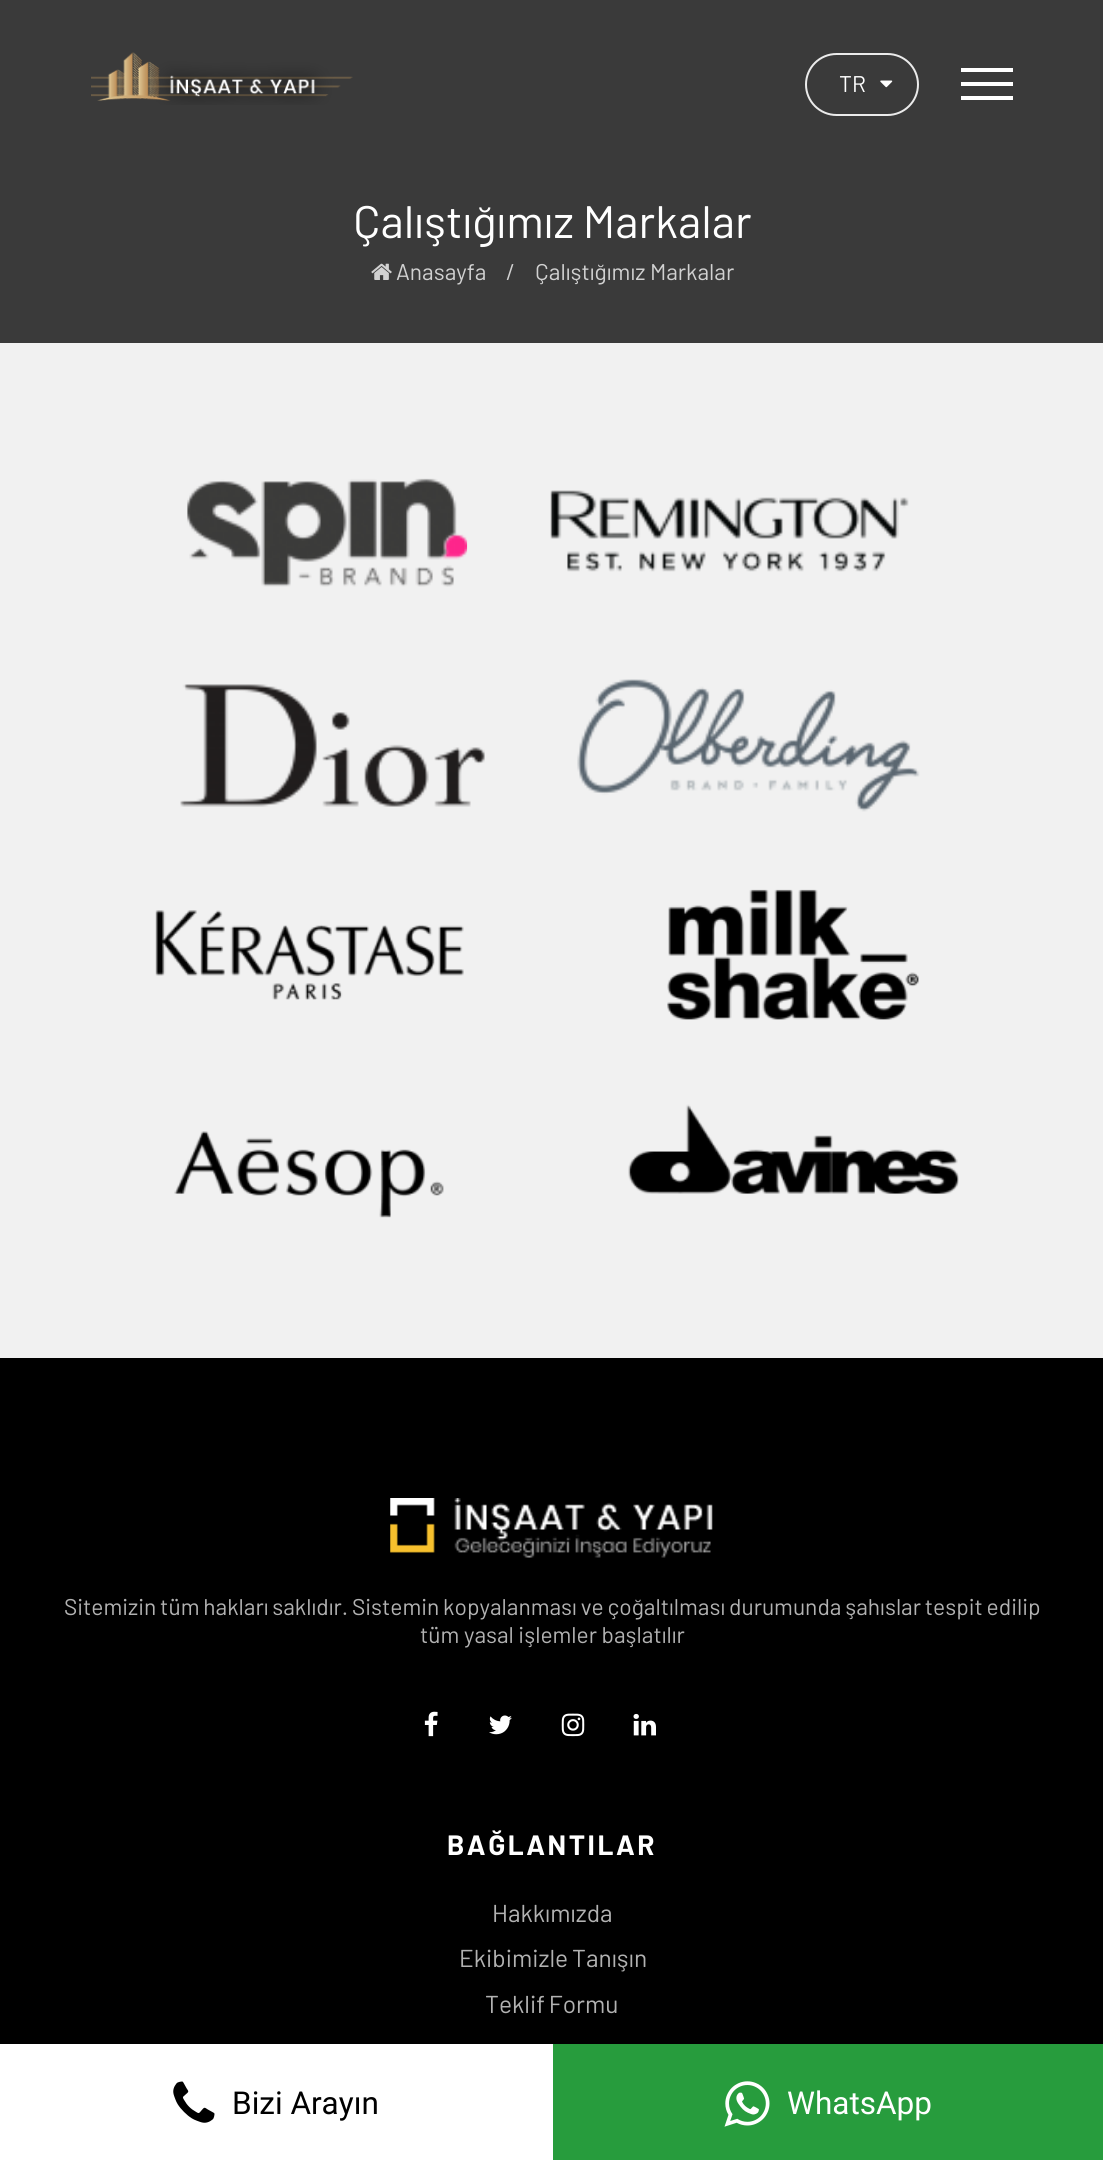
import math
import cairo

surface = cairo.ImageSurface(cairo.FORMAT_RGB24, 1103, 2160)
cr = cairo.Context(surface)
options = cairo.FontOptions()
options.set_hint_metrics(cairo.HINT_METRICS_OFF)
options.set_hint_style(cairo.HINT_STYLE_NONE)
cr.set_font_options(options)
cr.set_miter_limit(4)


def rgb(code):
    cr.set_source_rgb(*(v / 255 for v in bytes.fromhex(code[-6:])))


def tracked(x, y, s, letter, word):
    cr.move_to(x, y)
    for ch in s:
        cr.show_text(ch)
        cr.rel_move_to(letter + word * (ch == ' '), 0)


def rrect(x, y, w, h, r):
    cr.new_sub_path()
    for i, (u, v) in enumerate([(x + w - r, y + h - r), (x + r, y + h - r), (x + r, y + r), (x + w - r, y + r)]):
        cr.arc(u, v, r, i * math.pi / 2, (i + 1) * math.pi / 2)
    cr.close_path()


def soft_shadow(x, y, w, h, r, blur, alpha):
    cr.push_group_with_content(cairo.CONTENT_ALPHA)
    cr.set_operator(cairo.OPERATOR_SOURCE)
    for i in range(15, -16, -2):
        e = blur * i / 6
        if min(w, h) + 2 * e > 0:
            cr.set_source_rgba(0, 0, 0, alpha * math.erfc((i - 1) / 8.5) / 2)
            rrect(x - e, y - e, w + 2 * e, h + 2 * e, max(0, min(r + e + blur * .6, min(w, h) / 2 + e)))
            cr.fill()
    cr.mask(cr.pop_group())


def image(path, x, y, w, h):
    cr.save()
    cr.set_source_surface(cairo.ImageSurface.create_from_png(path), x, y)
    cr.rectangle(x, y, w, h)
    cr.fill()
    cr.restore()


rgb("#f1f1f1")
cr.paint()
rgb("#3a3a3a")
cr.rectangle(0, 0, 1103, 343)
cr.fill()
image("img/1.png", 91, 52, 262, 53)
rrect(806, 54, 112, 61, 30.5)
rgb("#ebebeb")
cr.stroke()
image("img/2.png", 880, 80, 13, 8)
for x, y, w, h, color in [
    (961, 68, 52, 4, "#ffffff"),
    (961, 82, 52, 4, "#ffffff"),
    (961, 96, 52, 4, "#ffffff"),
]:
    rgb(color)
    cr.rectangle(x, y, w, h)
    cr.fill()
image("img/3.png", 371, 263, 21, 17)
image("img/4.png", 187, 478, 281, 109)
image("img/5.png", 550, 490, 359, 82)
image("img/6.png", 180, 684, 305, 123)
image("img/7.png", 577, 679, 343, 133)
image("img/8.png", 155, 910, 309, 90)
image("img/9.png", 667, 889, 252, 131)
image("img/10.png", 174, 1131, 270, 87)
image("img/11.png", 628, 1104, 331, 90)
rgb("#000000")
cr.rectangle(0, 1358, 1103, 686)
cr.fill()
image("img/12.png", 390, 1498, 323, 60)
image("img/13.png", 424, 1711, 14, 26)
image("img/14.png", 489, 1715, 23, 20)
image("img/15.png", 561, 1713, 24, 24)
image("img/16.png", 633, 1713, 23, 23)
rgb("#000000")
soft_shadow(0, 2044, 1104, 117, 0, 13, 0.1)
rgb("#ffffff")
cr.rectangle(0, 2044, 553, 116)
cr.fill()
image("img/17.png", 173, 2081, 42, 42)
rgb("#279c3d")
cr.rectangle(553, 2044, 550, 116)
cr.fill()
image("img/18.png", 724, 2081, 46, 46)
cr.select_font_face("Barlow")
cr.set_font_size(22.75)
rgb("#ffffff")
cr.move_to(839, 92)
cr.show_text("TR")
cr.set_font_size(45.5)
cr.move_to(353, 238)
cr.show_text("Çalıştığımız Markalar")
cr.set_font_size(22.75)
rgb("#d1d1d1")
for x, y, s in [
    (396, 280, "Anasayfa"),
    (506, 280, "/"),
    (535, 280, "Çalıştığımız Markalar"),
]:
    cr.move_to(x, y)
    cr.show_text(s)
rgb("#b2b2b2")
tracked(64, 1615, "Sitemizin tüm hakları saklıdır. Sistemin kopyalanması ve çoğaltılması durumunda şahıslar tespit edilip", 0, -0.75)
cr.move_to(420, 1643)
cr.show_text("tüm yasal işlemler başlatılır")
cr.select_font_face("Barlow", cairo.FONT_SLANT_NORMAL, cairo.FONT_WEIGHT_BOLD)
cr.set_font_size(28)
rgb("#ffffff")
tracked(447, 1855, "BAĞLANTILAR", 2.5, 0)
cr.select_font_face("Barlow")
cr.set_font_size(24.5)
rgb("#b2b2b2")
cr.move_to(492, 1922)
cr.show_text("Hakkımızda")
tracked(459, 1967, "Ekibimizle Tanışın", 0, -1)
tracked(485, 2013, "Teklif Formu", 0, -1)
cr.select_font_face("Roboto")
cr.set_font_size(31.5)
rgb("#000000")
cr.move_to(232, 2114)
cr.show_text("Bizi Arayın")
rgb("#ffffff")
cr.move_to(787, 2114)
cr.show_text("WhatsApp")
surface.write_to_png("page.png")
